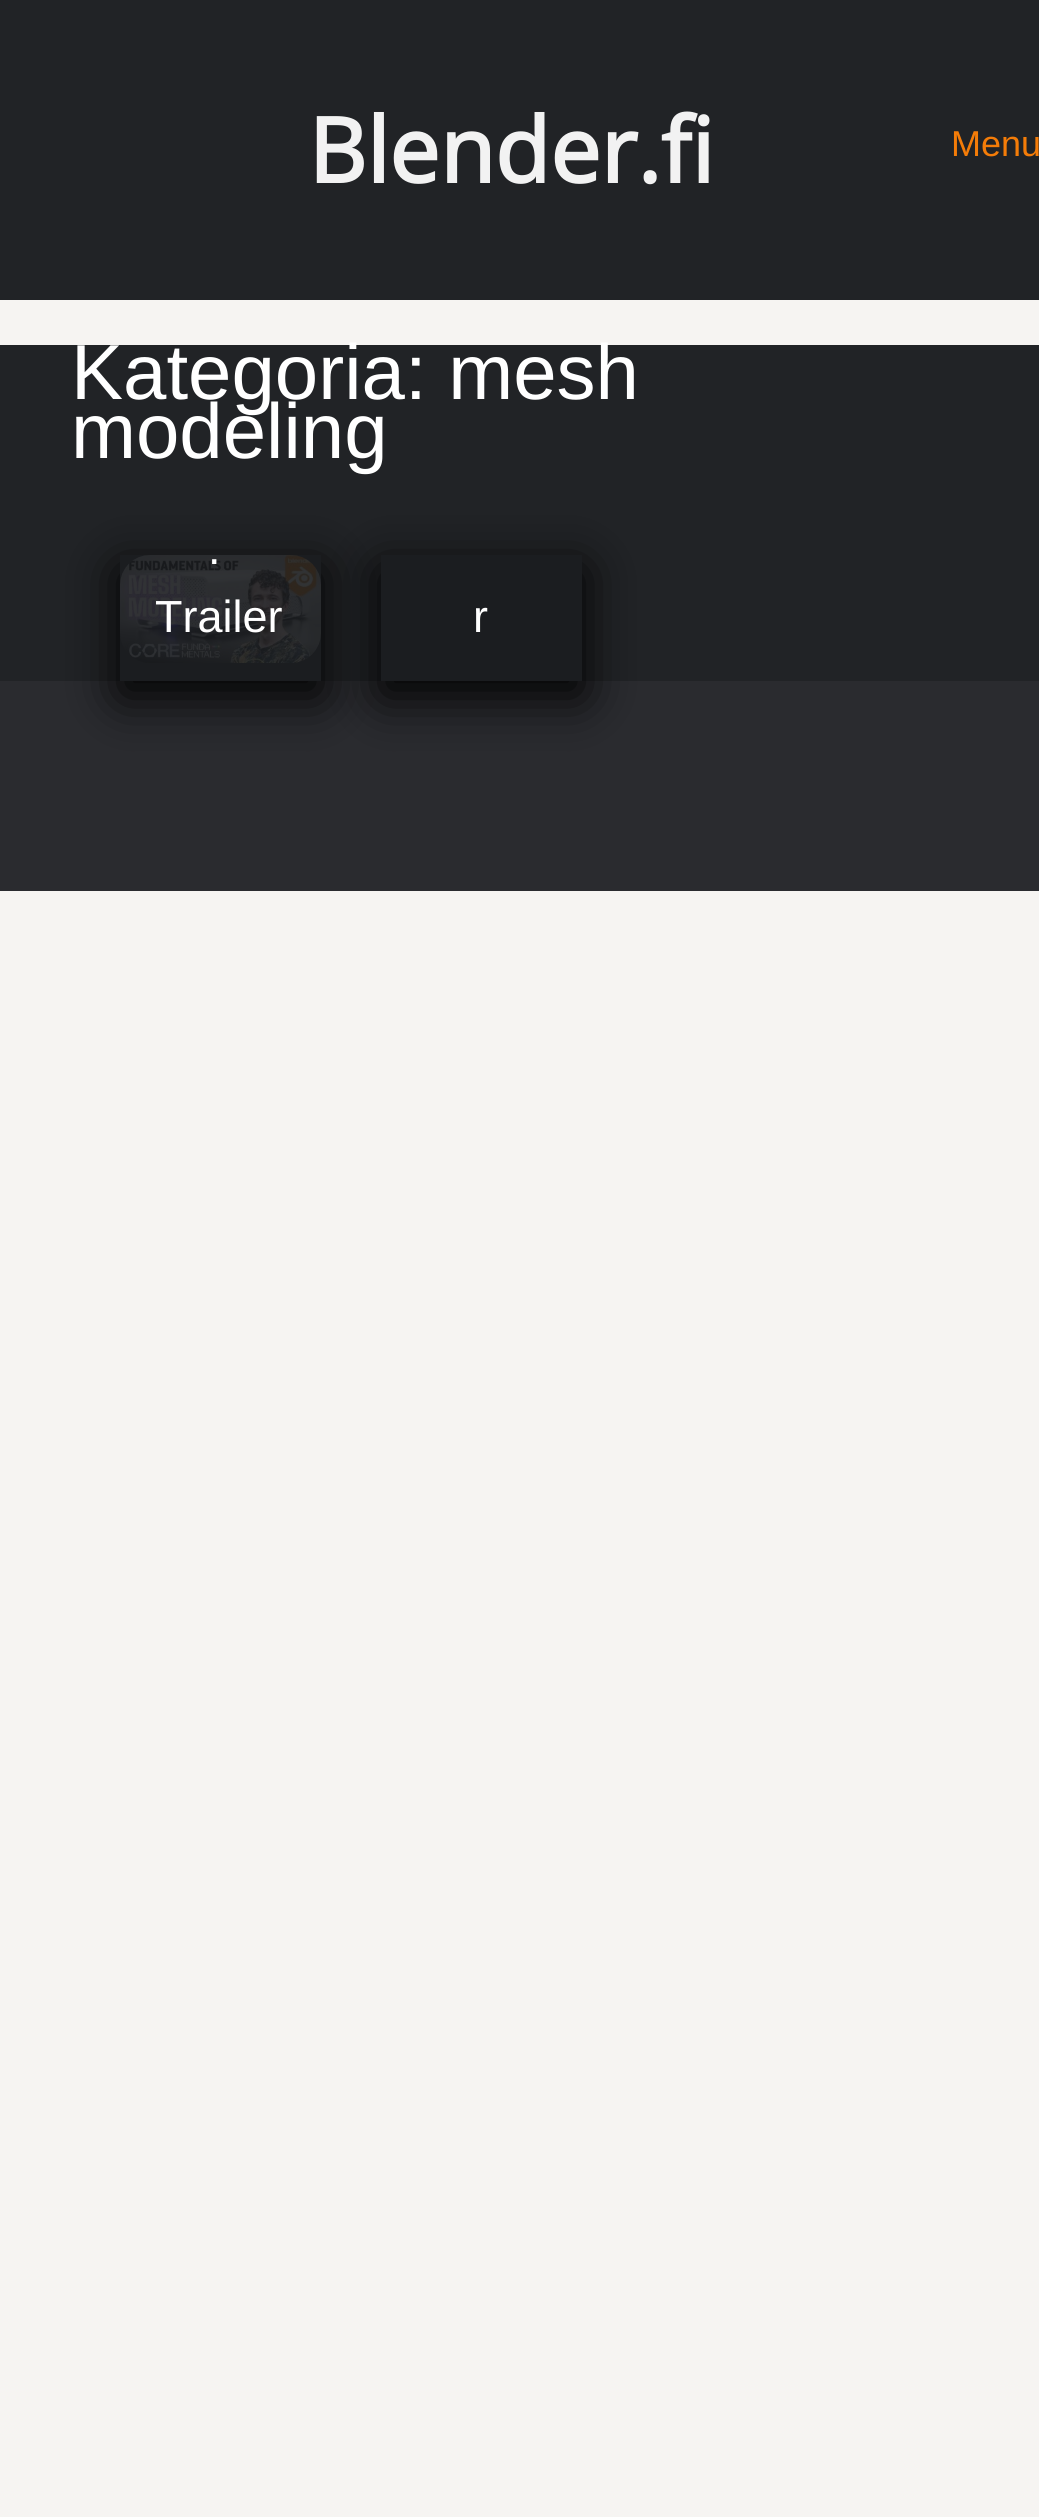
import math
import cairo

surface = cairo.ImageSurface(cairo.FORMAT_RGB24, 1039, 2517)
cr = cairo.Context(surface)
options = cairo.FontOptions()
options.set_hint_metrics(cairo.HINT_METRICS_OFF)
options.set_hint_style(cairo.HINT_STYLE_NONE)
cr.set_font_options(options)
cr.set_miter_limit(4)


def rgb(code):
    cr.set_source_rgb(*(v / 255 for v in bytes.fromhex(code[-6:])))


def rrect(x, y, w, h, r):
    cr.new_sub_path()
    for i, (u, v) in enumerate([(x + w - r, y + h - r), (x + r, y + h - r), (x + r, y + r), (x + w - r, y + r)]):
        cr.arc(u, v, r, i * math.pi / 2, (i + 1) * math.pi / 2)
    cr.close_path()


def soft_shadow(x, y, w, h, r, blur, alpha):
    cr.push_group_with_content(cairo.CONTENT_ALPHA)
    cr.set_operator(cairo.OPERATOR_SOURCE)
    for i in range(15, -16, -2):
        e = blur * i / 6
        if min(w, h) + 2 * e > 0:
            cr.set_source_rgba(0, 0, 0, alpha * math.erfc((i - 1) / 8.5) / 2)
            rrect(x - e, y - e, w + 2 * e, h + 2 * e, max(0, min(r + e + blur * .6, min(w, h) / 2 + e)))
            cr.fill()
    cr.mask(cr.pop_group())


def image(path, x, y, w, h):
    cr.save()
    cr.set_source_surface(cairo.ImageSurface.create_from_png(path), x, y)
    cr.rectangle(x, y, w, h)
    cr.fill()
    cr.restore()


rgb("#f6f4f2")
cr.paint()
for x, y, w, h, color in [
    (0, 0, 1039, 300, "#212326"),
    (0, 345, 1039, 336, "#212326"),
    (381, 555, 201, 126, "#1b1d20"),
    (120, 555, 201, 126, "#1b1d20"),
    (0, 681, 1039, 210, "#2a2b2f"),
]:
    rgb(color)
    cr.rectangle(x, y, w, h)
    cr.fill()
cr.save()
cr.set_fill_rule(cairo.FILL_RULE_EVEN_ODD)
cr.new_path()
cr.move_to(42, 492)
cr.line_to(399, 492)
cr.line_to(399, 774)
cr.line_to(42, 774)
cr.close_path()
cr.move_to(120, 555)
cr.line_to(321, 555)
cr.line_to(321, 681)
cr.line_to(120, 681)
cr.close_path()
cr.clip()
rgb("#000000")
soft_shadow(120, 570, 201, 126, 0, 25.5, 1)
cr.restore()
image("img/1.png", 120, 555, 201, 108)
cr.save()
cr.set_fill_rule(cairo.FILL_RULE_EVEN_ODD)
cr.new_path()
cr.move_to(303, 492)
cr.line_to(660, 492)
cr.line_to(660, 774)
cr.line_to(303, 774)
cr.close_path()
cr.move_to(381, 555)
cr.line_to(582, 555)
cr.line_to(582, 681)
cr.line_to(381, 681)
cr.close_path()
cr.clip()
rgb("#000000")
soft_shadow(381, 570, 201, 126, 0, 25.5, 1)
cr.restore()
cr.select_font_face("Open Sans", cairo.FONT_SLANT_NORMAL, cairo.FONT_WEIGHT_BOLD)
cr.set_font_size(90)
rgb("#f2f2f2")
cr.move_to(308, 183)
cr.show_text("Blender.fi")
cr.select_font_face("Liberation Sans")
cr.set_font_size(36)
rgb("#f47c08")
cr.move_to(951, 156)
cr.show_text("Menu")
cr.set_font_size(78)
rgb("#ffffff")
cr.move_to(71, 399)
cr.show_text("Kategoria: mesh")
cr.move_to(71, 458)
cr.show_text("modeling")
cr.set_font_size(45)
for x, y, s in [
    (208, 564, "."),
    (155, 632, "Trailer"),
    (473, 632, "r"),
]:
    cr.move_to(x, y)
    cr.show_text(s)
surface.write_to_png("page.png")
